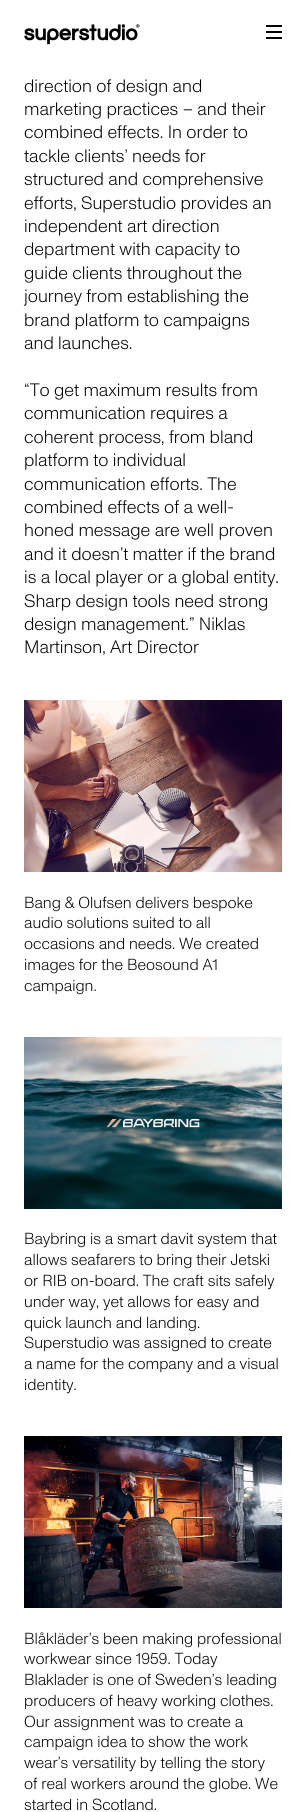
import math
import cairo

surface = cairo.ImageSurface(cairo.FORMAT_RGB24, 306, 1812)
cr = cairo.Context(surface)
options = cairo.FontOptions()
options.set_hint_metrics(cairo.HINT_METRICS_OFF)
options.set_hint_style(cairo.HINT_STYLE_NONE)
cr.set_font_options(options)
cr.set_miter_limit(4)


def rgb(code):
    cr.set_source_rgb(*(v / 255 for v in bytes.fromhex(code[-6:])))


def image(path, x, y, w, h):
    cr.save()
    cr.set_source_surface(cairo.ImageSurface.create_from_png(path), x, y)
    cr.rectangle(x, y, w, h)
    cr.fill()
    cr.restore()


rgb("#ffffff")
cr.paint()
image("img/1.png", 24, 24, 116, 21)
for x, y, w, h, color in [
    (266, 25, 16, 2, "#000000"),
    (266, 31, 16, 2, "#000000"),
    (266, 37, 16, 2, "#000000"),
]:
    rgb(color)
    cr.rectangle(x, y, w, h)
    cr.fill()
image("img/2.png", 24, 700, 258, 172)
image("img/3.png", 24, 1037, 258, 172)
image("img/4.png", 24, 1436, 258, 172)
cr.select_font_face("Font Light")
cr.set_font_size(18)
for x, y, s in [
    (24, 92, "direction of design and"),
    (24, 115, "marketing practices – and their"),
    (24, 138, "combined effects. In order to"),
    (24, 162, "tackle clients’ needs for"),
    (24, 185, "structured and comprehensive"),
    (24, 209, "efforts, Superstudio provides an"),
    (24, 232, "independent art direction"),
    (24, 255, "department with capacity to"),
    (24, 279, "guide clients throughout the"),
    (24, 302, "journey from establishing the"),
    (24, 326, "brand platform to campaigns"),
    (24, 349, "and launches."),
    (24, 396, "“To get maximum results from"),
    (24, 419, "communication requires a"),
    (24, 443, "coherent process, from bland"),
    (24, 466, "platform to individual"),
    (24, 490, "communication efforts. The"),
    (24, 513, "combined effects of a well-"),
    (24, 536, "honed message are well proven"),
    (24, 560, "and it doesn’t matter if the brand"),
    (24, 583, "is a local player or a global entity."),
    (24, 607, "Sharp design tools need strong"),
    (24, 630, "design management.” Niklas"),
    (24, 653, "Martinson, Art Director"),
]:
    cr.move_to(x, y)
    cr.show_text(s)
cr.set_font_size(16)
for x, y, s in [
    (24, 908, "Bang & Olufsen delivers bespoke"),
    (24, 928, "audio solutions suited to all"),
    (24, 949, "occasions and needs. We created"),
    (24, 970, "images for the Beosound A1"),
    (24, 991, "campaign."),
    (24, 1244, "Baybring is a smart davit system that"),
    (24, 1265, "allows seafarers to bring their Jetski"),
    (24, 1286, "or RIB on-board. The craft sits safely"),
    (24, 1307, "under way, yet allows for easy and"),
    (24, 1328, "quick launch and landing."),
    (24, 1348, "Superstudio was assigned to create"),
    (24, 1369, "a name for the company and a visual"),
    (24, 1390, "identity."),
    (24, 1644, "Blåkläder’s been making professional"),
    (24, 1664, "workwear since 1959. Today"),
    (24, 1685, "Blaklader is one of Sweden’s leading"),
    (24, 1706, "producers of heavy working clothes."),
    (24, 1727, "Our assignment was to create a"),
    (24, 1747, "campaign idea to show the work"),
    (24, 1768, "wear’s versatility by telling the story"),
    (24, 1789, "of real workers around the globe. We"),
    (24, 1810, "started in Scotland."),
]:
    cr.move_to(x, y)
    cr.show_text(s)
surface.write_to_png("page.png")
